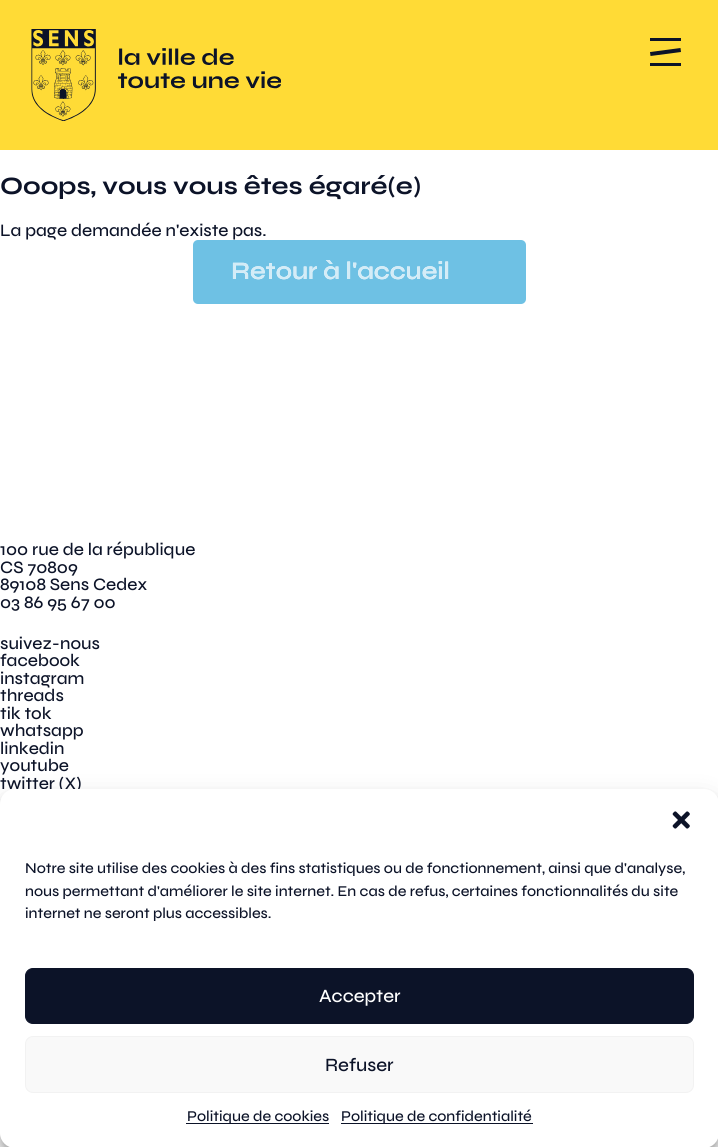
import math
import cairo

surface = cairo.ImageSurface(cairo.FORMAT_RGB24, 718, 1147)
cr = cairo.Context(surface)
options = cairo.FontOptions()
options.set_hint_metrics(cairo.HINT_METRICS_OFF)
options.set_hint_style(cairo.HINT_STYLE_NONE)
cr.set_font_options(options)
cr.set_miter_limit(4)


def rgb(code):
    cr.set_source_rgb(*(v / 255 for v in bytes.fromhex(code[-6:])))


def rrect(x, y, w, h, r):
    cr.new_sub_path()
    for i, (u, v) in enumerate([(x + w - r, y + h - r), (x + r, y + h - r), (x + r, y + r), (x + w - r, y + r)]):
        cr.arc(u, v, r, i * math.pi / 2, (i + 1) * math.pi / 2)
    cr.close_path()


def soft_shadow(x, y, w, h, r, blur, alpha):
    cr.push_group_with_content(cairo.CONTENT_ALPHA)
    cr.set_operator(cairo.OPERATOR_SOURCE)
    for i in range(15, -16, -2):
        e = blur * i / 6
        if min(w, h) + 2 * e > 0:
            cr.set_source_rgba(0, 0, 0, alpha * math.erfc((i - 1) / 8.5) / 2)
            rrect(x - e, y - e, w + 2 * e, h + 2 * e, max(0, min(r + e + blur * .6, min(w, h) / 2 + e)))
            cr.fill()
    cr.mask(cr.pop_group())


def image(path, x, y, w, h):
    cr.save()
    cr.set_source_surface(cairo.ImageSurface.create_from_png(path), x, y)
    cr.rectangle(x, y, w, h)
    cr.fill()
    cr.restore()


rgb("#ffffff")
cr.paint()
rgb("#ffdb36")
cr.rectangle(0, 0, 718, 150)
cr.fill()
image("img/1.png", 31, 29, 250, 92)
rgb("#0c1328")
cr.rectangle(650, 63, 31, 3)
cr.fill()
cr.rectangle(650, 38, 31, 3)
cr.fill()
cr.new_path()
cr.move_to(650, 52)
cr.line_to(680.5, 48)
cr.line_to(681, 52)
cr.line_to(650.5, 56)
cr.close_path()
cr.fill()
rgb("#6ec1e4")
rrect(193, 240, 333, 64, 5)
cr.fill()
rgb("#000000")
soft_shadow(0, 796, 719, 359, 15, 4, 0.23)
soft_shadow(0, 801, 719, 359, 15, 12.5, 0.19)
cr.select_font_face("Syne", cairo.FONT_SLANT_NORMAL, cairo.FONT_WEIGHT_BOLD)
cr.set_font_size(25)
rgb("#0c1328")
cr.move_to(0, 194)
cr.show_text("Ooops, vous vous êtes égaré(e)")
cr.select_font_face("Syne Medium")
cr.set_font_size(17.5)
cr.move_to(0, 236)
cr.show_text("La page demandée n'existe pas.")
cr.select_font_face("Syne SemiBold")
cr.set_font_size(25)
rgb("#ffffff")
cr.move_to(231, 279)
cr.show_text("Retour à l'accueil")
rgb("#d4ecf7")
cr.move_to(231, 279)
cr.show_text("Retour à l'accueil")
cr.select_font_face("Syne Medium")
cr.set_font_size(17.5)
rgb("#0c1328")
for x, y, s in [
    (0, 555, "100 rue de la république"),
    (0, 573, "CS 70809"),
    (0, 590, "89108 Sens Cedex"),
    (0, 608, "03 86 95 67 00"),
    (0, 649, "suivez-nous"),
    (0, 666, "facebook"),
    (0, 684, "instagram"),
    (0, 701, "threads"),
    (0, 719, "tik tok"),
    (0, 736, "whatsapp"),
    (0, 754, "linkedin"),
    (0, 771, "youtube"),
    (0, 789, "twitter (X)"),
]:
    cr.move_to(x, y)
    cr.show_text(s)
rgb("#ffffff")
rrect(0, 789, 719, 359, 15)
cr.fill()
image("img/2.png", 672, 811, 18, 18)
cr.set_font_size(15)
rgb("#0c1328")
for x, y, s in [
    (25, 873, "Notre site utilise des cookies à des fins statistiques ou de fonctionnement, ainsi que d'analyse,"),
    (25, 896, "nous permettant d'améliorer le site internet. En cas de refus, certaines fonctionnalités du site"),
    (25, 918, "internet ne seront plus accessibles."),
]:
    cr.move_to(x, y)
    cr.show_text(s)
rrect(25.5, 968.5, 668, 55, 7.5)
cr.fill_preserve()
cr.set_line_width(1)
cr.stroke()
cr.set_font_size(18.75)
rgb("#ffffff")
cr.move_to(319, 1002)
cr.show_text("Accepter")
rgb("#f9f9f9")
rrect(25.5, 1036.5, 668, 56, 7.5)
cr.fill_preserve()
rgb("#f2f2f2")
cr.stroke()
rgb("#0c1328")
cr.move_to(325, 1071)
cr.show_text("Refuser")
cr.rectangle(186, 1123, 143, 1)
cr.fill()
cr.set_font_size(15)
cr.move_to(187, 1121)
cr.show_text("Politique de cookies")
cr.rectangle(341, 1123, 192, 1)
cr.fill()
cr.move_to(341, 1121)
cr.show_text("Politique de confidentialité")
surface.write_to_png("page.png")
